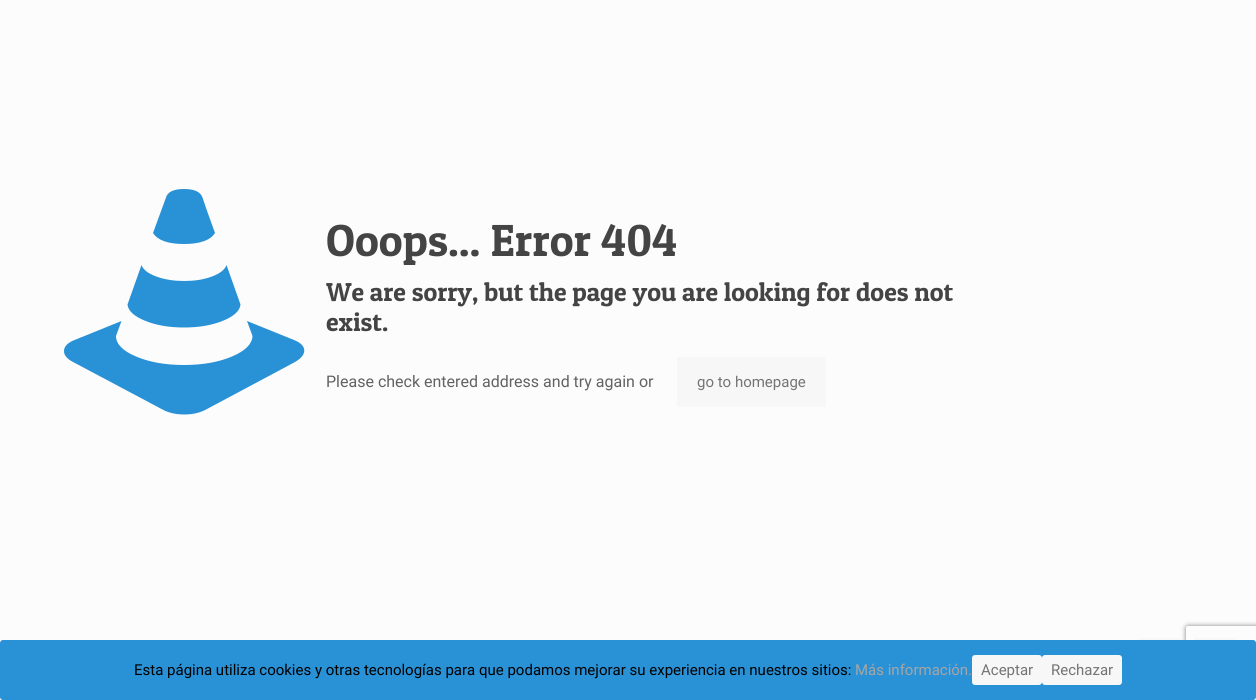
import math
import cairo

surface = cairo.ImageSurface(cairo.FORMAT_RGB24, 1256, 700)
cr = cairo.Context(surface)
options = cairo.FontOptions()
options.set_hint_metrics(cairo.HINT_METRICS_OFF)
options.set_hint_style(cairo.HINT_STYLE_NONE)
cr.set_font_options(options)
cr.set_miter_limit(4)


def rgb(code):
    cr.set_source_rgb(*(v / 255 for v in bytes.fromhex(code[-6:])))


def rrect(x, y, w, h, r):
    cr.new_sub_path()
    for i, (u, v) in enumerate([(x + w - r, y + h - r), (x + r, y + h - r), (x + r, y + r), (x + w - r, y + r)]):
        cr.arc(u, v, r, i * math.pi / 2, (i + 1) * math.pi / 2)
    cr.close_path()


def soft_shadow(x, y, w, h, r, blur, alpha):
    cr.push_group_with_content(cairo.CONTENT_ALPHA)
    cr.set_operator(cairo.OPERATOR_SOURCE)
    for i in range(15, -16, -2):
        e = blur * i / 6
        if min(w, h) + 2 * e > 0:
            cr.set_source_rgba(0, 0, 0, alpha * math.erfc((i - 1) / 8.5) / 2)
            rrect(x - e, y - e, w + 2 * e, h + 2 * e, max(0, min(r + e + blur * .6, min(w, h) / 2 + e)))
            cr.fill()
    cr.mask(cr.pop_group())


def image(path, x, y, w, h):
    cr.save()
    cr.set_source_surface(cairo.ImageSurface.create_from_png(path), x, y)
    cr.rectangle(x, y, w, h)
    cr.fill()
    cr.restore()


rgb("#fcfcfc")
cr.paint()
image("img/1.png", 64, 189, 241, 226)
rgb("#f7f7f7")
cr.rectangle(677, 357, 149, 50)
cr.fill()
cr.save()
cr.set_fill_rule(cairo.FILL_RULE_EVEN_ODD)
cr.new_path()
cr.move_to(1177, 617)
cr.line_to(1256, 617)
cr.line_to(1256, 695)
cr.line_to(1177, 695)
cr.close_path()
cr.move_to(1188, 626)
cr.line_to(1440, 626)
cr.curve_to(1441, 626, 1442, 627, 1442, 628)
cr.line_to(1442, 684)
cr.curve_to(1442, 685, 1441, 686, 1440, 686)
cr.line_to(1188, 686)
cr.curve_to(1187, 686, 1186, 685, 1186, 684)
cr.line_to(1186, 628)
cr.curve_to(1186, 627, 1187, 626, 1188, 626)
cr.close_path()
cr.clip()
rgb("#808080")
soft_shadow(1186, 626, 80, 60, 2, 2.5, 1)
cr.restore()
cr.rectangle(1139, 638, 42, 2)
cr.fill()
cr.rectangle(1194, 638, 42, 2)
cr.fill()
rgb("#2991d6")
rrect(0, 640, 1256, 60, 3)
cr.fill()
rgb("#f7f7f7")
rrect(972, 655, 70, 30, 3)
cr.fill()
rrect(1042, 655, 80, 30, 3)
cr.fill()
cr.select_font_face("Patua One")
cr.set_font_size(45)
rgb("#444444")
cr.move_to(326, 256)
cr.show_text("Ooops... Error 404")
cr.set_font_size(26)
cr.move_to(326, 301)
cr.show_text("We are sorry, but the page you are looking for does not")
cr.move_to(326, 331)
cr.show_text("exist.")
cr.select_font_face("Roboto")
cr.set_font_size(16)
rgb("#626262")
cr.move_to(326, 387)
cr.show_text("Please check entered address and try again or")
cr.set_font_size(15)
rgb("#747474")
cr.move_to(697, 387)
cr.show_text("go to homepage")
rgb("#000000")
cr.move_to(134, 675)
cr.show_text("Esta página utiliza cookies y otras tecnologías para que podamos mejorar su experiencia en nuestros sitios:")
rgb("#a5a5a5")
cr.move_to(855, 675)
cr.show_text("Más información.")
rgb("#747474")
cr.move_to(981, 675)
cr.show_text("Aceptar")
cr.move_to(1051, 675)
cr.show_text("Rechazar")
surface.write_to_png("page.png")
